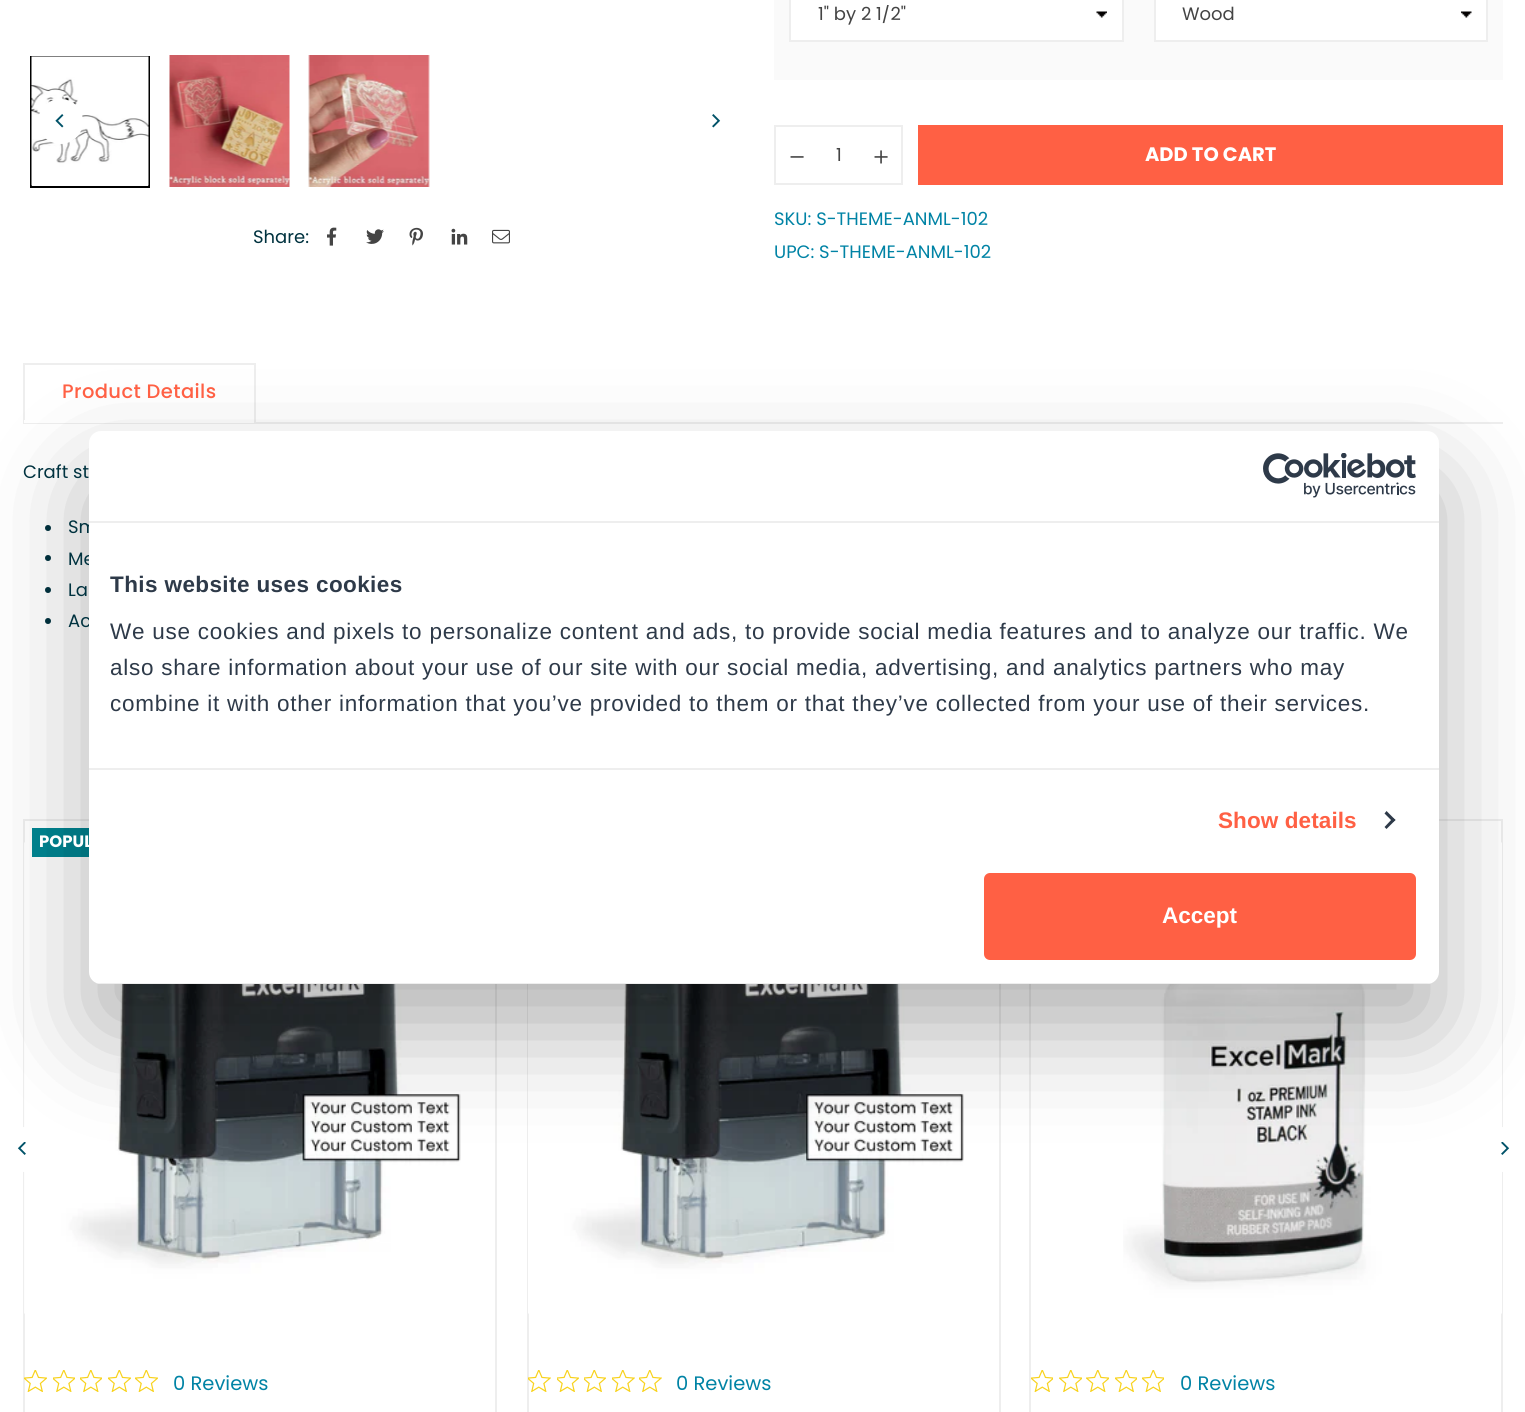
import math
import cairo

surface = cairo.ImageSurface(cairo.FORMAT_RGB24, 1525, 1412)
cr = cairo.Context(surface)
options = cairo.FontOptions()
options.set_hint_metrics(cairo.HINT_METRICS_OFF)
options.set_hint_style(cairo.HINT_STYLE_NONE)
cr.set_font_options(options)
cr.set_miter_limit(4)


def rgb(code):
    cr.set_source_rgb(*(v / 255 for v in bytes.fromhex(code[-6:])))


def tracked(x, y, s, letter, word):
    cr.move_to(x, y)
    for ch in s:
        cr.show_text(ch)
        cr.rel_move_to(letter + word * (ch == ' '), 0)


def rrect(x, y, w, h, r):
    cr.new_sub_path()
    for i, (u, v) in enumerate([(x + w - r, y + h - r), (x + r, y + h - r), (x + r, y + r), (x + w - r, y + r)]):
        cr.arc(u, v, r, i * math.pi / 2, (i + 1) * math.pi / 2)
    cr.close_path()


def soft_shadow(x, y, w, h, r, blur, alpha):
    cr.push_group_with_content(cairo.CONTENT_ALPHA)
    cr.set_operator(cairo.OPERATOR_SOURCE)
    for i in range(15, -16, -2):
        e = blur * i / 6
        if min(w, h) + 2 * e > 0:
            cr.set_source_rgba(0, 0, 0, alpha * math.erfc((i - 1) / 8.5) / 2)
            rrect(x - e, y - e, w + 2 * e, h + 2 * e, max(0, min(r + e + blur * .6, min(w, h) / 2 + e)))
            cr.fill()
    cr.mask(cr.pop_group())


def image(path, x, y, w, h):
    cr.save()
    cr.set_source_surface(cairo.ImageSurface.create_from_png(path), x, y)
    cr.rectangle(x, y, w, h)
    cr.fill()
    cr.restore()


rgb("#ffffff")
cr.paint()
cr.rectangle(31, 57, 118, 130)
rgb("#000000")
cr.stroke()
image("img/1.png", 31, 56, 118, 130)
image("img/2.png", 169, 55, 121, 132)
image("img/3.png", 308, 55, 122, 132)
rgb("#ffffff")
cr.arc(60.5, 121.5, 22.5, 0, 2 * math.pi)
cr.fill()
image("img/4.png", 55, 114, 9, 14)
image("img/5.png", 712, 114, 9, 14)
image("img/6.png", 327, 227, 10, 19)
image("img/7.png", 366, 229, 18, 15)
image("img/8.png", 409, 227, 14, 19)
image("img/9.png", 451, 228, 17, 17)
image("img/10.png", 492, 229, 18, 15)
rgb("#fafafa")
cr.rectangle(774, 0, 729, 80)
cr.fill()
rgb("#ffffff")
cr.rectangle(791, 0, 331, 40)
cr.fill()
image("img/11.png", 1096, 11, 11, 7)
cr.rectangle(790, -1, 333, 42)
rgb("#eeeeee")
cr.stroke()
rgb("#ffffff")
cr.rectangle(1156, 0, 330, 40)
cr.fill()
image("img/12.png", 1461, 11, 11, 7)
cr.rectangle(1155, -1, 332, 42)
rgb("#eeeeee")
cr.stroke()
cr.rectangle(775, 126, 127, 58)
cr.stroke()
image("img/13.png", 790, 156, 14, 2)
image("img/14.png", 874, 150, 14, 14)
for x, y, w, h, color in [
    (918, 125, 585, 60, "#ff6044"),
    (23, 422, 1480, 2, "#eeeeee"),
    (23, 363, 232, 2, "#eeeeee"),
    (254, 363, 2, 59, "#eeeeee"),
    (23, 363, 2, 59, "#eeeeee"),
    (24, 420, 230, 3, "#ffffff"),
]:
    rgb(color)
    cr.rectangle(x, y, w, h)
    cr.fill()
rgb("#00323f")
cr.arc(48, 528, 3, 0, 2 * math.pi)
cr.fill()
cr.arc(48, 558, 3, 0, 2 * math.pi)
cr.fill()
cr.arc(48, 590, 3, 0, 2 * math.pi)
cr.fill()
cr.arc(48, 621, 3, 0, 2 * math.pi)
cr.fill()
cr.rectangle(24, 820, 472, 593)
rgb("#eeeeee")
cr.stroke()
image("img/16.png", 24, 842, 437, 472)
rgb("#ffffff")
cr.arc(22.5, 1149.5, 22.5, 0, 2 * math.pi)
cr.fill()
image("img/15.png", 17, 1142, 9, 13)
rgb("#008592")
cr.rectangle(32, 828, 57, 29)
cr.fill()
image("img/17.png", 24, 1370, 23, 22)
image("img/18.png", 53, 1370, 22, 22)
image("img/18.png", 80, 1370, 22, 22)
image("img/19.png", 108, 1370, 23, 22)
image("img/19.png", 135, 1370, 23, 22)
cr.rectangle(528, 820, 472, 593)
rgb("#eeeeee")
cr.stroke()
image("img/20.png", 528, 984, 436, 330)
image("img/21.png", 528, 1370, 23, 22)
image("img/22.png", 557, 1370, 22, 22)
image("img/22.png", 584, 1370, 22, 22)
image("img/23.png", 612, 1370, 23, 22)
image("img/23.png", 639, 1370, 23, 22)
cr.rectangle(1030, 820, 472, 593)
cr.stroke()
image("img/24.png", 1123, 842, 379, 472)
image("img/25.png", 1031, 1370, 22, 22)
image("img/26.png", 1059, 1370, 23, 22)
image("img/26.png", 1086, 1370, 23, 22)
image("img/25.png", 1115, 1370, 22, 22)
image("img/25.png", 1142, 1370, 22, 22)
rgb("#ffffff")
cr.arc(1503.5, 1149.5, 22.5, 0, 2 * math.pi)
cr.fill()
image("img/27.png", 1501, 1142, 9, 13)
rgb("#000000")
soft_shadow(89, 479, 1350, 553, 12, 51, 0.3)
cr.select_font_face("Poppins")
cr.set_font_size(18)
rgb("#00323f")
cr.move_to(253, 243)
cr.show_text("Share:")
cr.save()
cr.rectangle(818, 5, 259, 21)
cr.clip()
rgb("#444444")
cr.move_to(818, 20)
cr.show_text("1\" by 2 1/2\"")
cr.restore()
rgb("#444444")
cr.move_to(1182, 20)
cr.show_text("Wood")
cr.move_to(836, 161)
cr.show_text("1")
cr.select_font_face("Poppins", cairo.FONT_SLANT_NORMAL, cairo.FONT_WEIGHT_BOLD)
cr.set_font_size(19.5)
rgb("#ffffff")
cr.move_to(1145, 161)
cr.show_text("ADD TO CART")
cr.select_font_face("Poppins")
cr.set_font_size(18)
rgb("#0083a5")
cr.move_to(774, 225)
cr.show_text("SKU: S-THEME-ANML-102")
cr.move_to(774, 258)
cr.show_text("UPC: S-THEME-ANML-102")
cr.select_font_face("Poppins Medium")
cr.set_font_size(19.5)
rgb("#ff6044")
tracked(62, 398, "Product Details", 0.4, 0)
cr.select_font_face("Poppins")
cr.set_font_size(18)
rgb("#00323f")
for x, y, s in [
    (23, 478, "Craft st"),
    (68, 533, "Sm"),
    (68, 565, "Me"),
    (68, 596, "La"),
    (68, 627, "Ac"),
]:
    cr.move_to(x, y)
    cr.show_text(s)
cr.select_font_face("Poppins", cairo.FONT_SLANT_NORMAL, cairo.FONT_WEIGHT_BOLD)
cr.set_font_size(16.5)
rgb("#ffffff")
cr.move_to(39, 847)
cr.show_text("POPUL")
cr.select_font_face("Poppins")
cr.set_font_size(19.5)
rgb("#0083a5")
for x, y, s in [
    (173, 1390, "0 Reviews"),
    (676, 1390, "0 Reviews"),
    (1180, 1390, "0 Reviews"),
]:
    cr.move_to(x, y)
    cr.show_text(s)
rgb("#ffffff")
rrect(89, 431, 1350, 553, 12)
cr.fill()
rgb("#eeeeee")
cr.rectangle(89, 521, 1350, 2)
cr.fill()
image("img/28.png", 1263, 453, 153, 45)
cr.rectangle(89, 768, 1350, 2)
cr.fill()
cr.select_font_face("Liberation Sans", cairo.FONT_SLANT_NORMAL, cairo.FONT_WEIGHT_BOLD)
cr.set_font_size(22.5)
rgb("#2e3a49")
tracked(110, 592, "This website uses cookies", 0.4, 0)
cr.select_font_face("Liberation Sans")
for x, y, s in [
    (110, 639, "We use cookies and pixels to personalize content and ads, to provide social media features and to analyze our traffic. We"),
    (110, 675, "also share information about your use of our site with our social media, advertising, and analytics partners who may"),
    (110, 711, "combine it with other information that you’ve provided to them or that they’ve collected from your use of their services."),
]:
    tracked(x, y, s, 0.75, 0)
cr.select_font_face("Liberation Sans", cairo.FONT_SLANT_NORMAL, cairo.FONT_WEIGHT_BOLD)
rgb("#ff6044")
tracked(1218, 828, "Show details", 0.1, 0)
rgb("#2e3a49")
cr.new_path()
cr.move_to(1386.5, 811)
cr.line_to(1395.5, 820)
cr.line_to(1393, 822)
cr.line_to(1384.5, 813.5)
cr.close_path()
cr.fill()
cr.new_path()
cr.move_to(1393, 818)
cr.line_to(1395.5, 820)
cr.line_to(1386.5, 829)
cr.line_to(1384.5, 827)
cr.close_path()
cr.fill()
cr.save()
rrect(89, 431, 1350, 553, 12)
cr.clip()
rgb("#eeeeee")
cr.rectangle(89, 983, 1350, 1)
cr.fill()
cr.restore()
rgb("#ff6044")
rrect(985.5, 874.5, 429, 84, 4.5)
cr.fill_preserve()
cr.set_line_width(3)
cr.stroke()
rgb("#ffffff")
cr.move_to(1162, 923)
cr.show_text("Accept")
surface.write_to_png("page.png")
